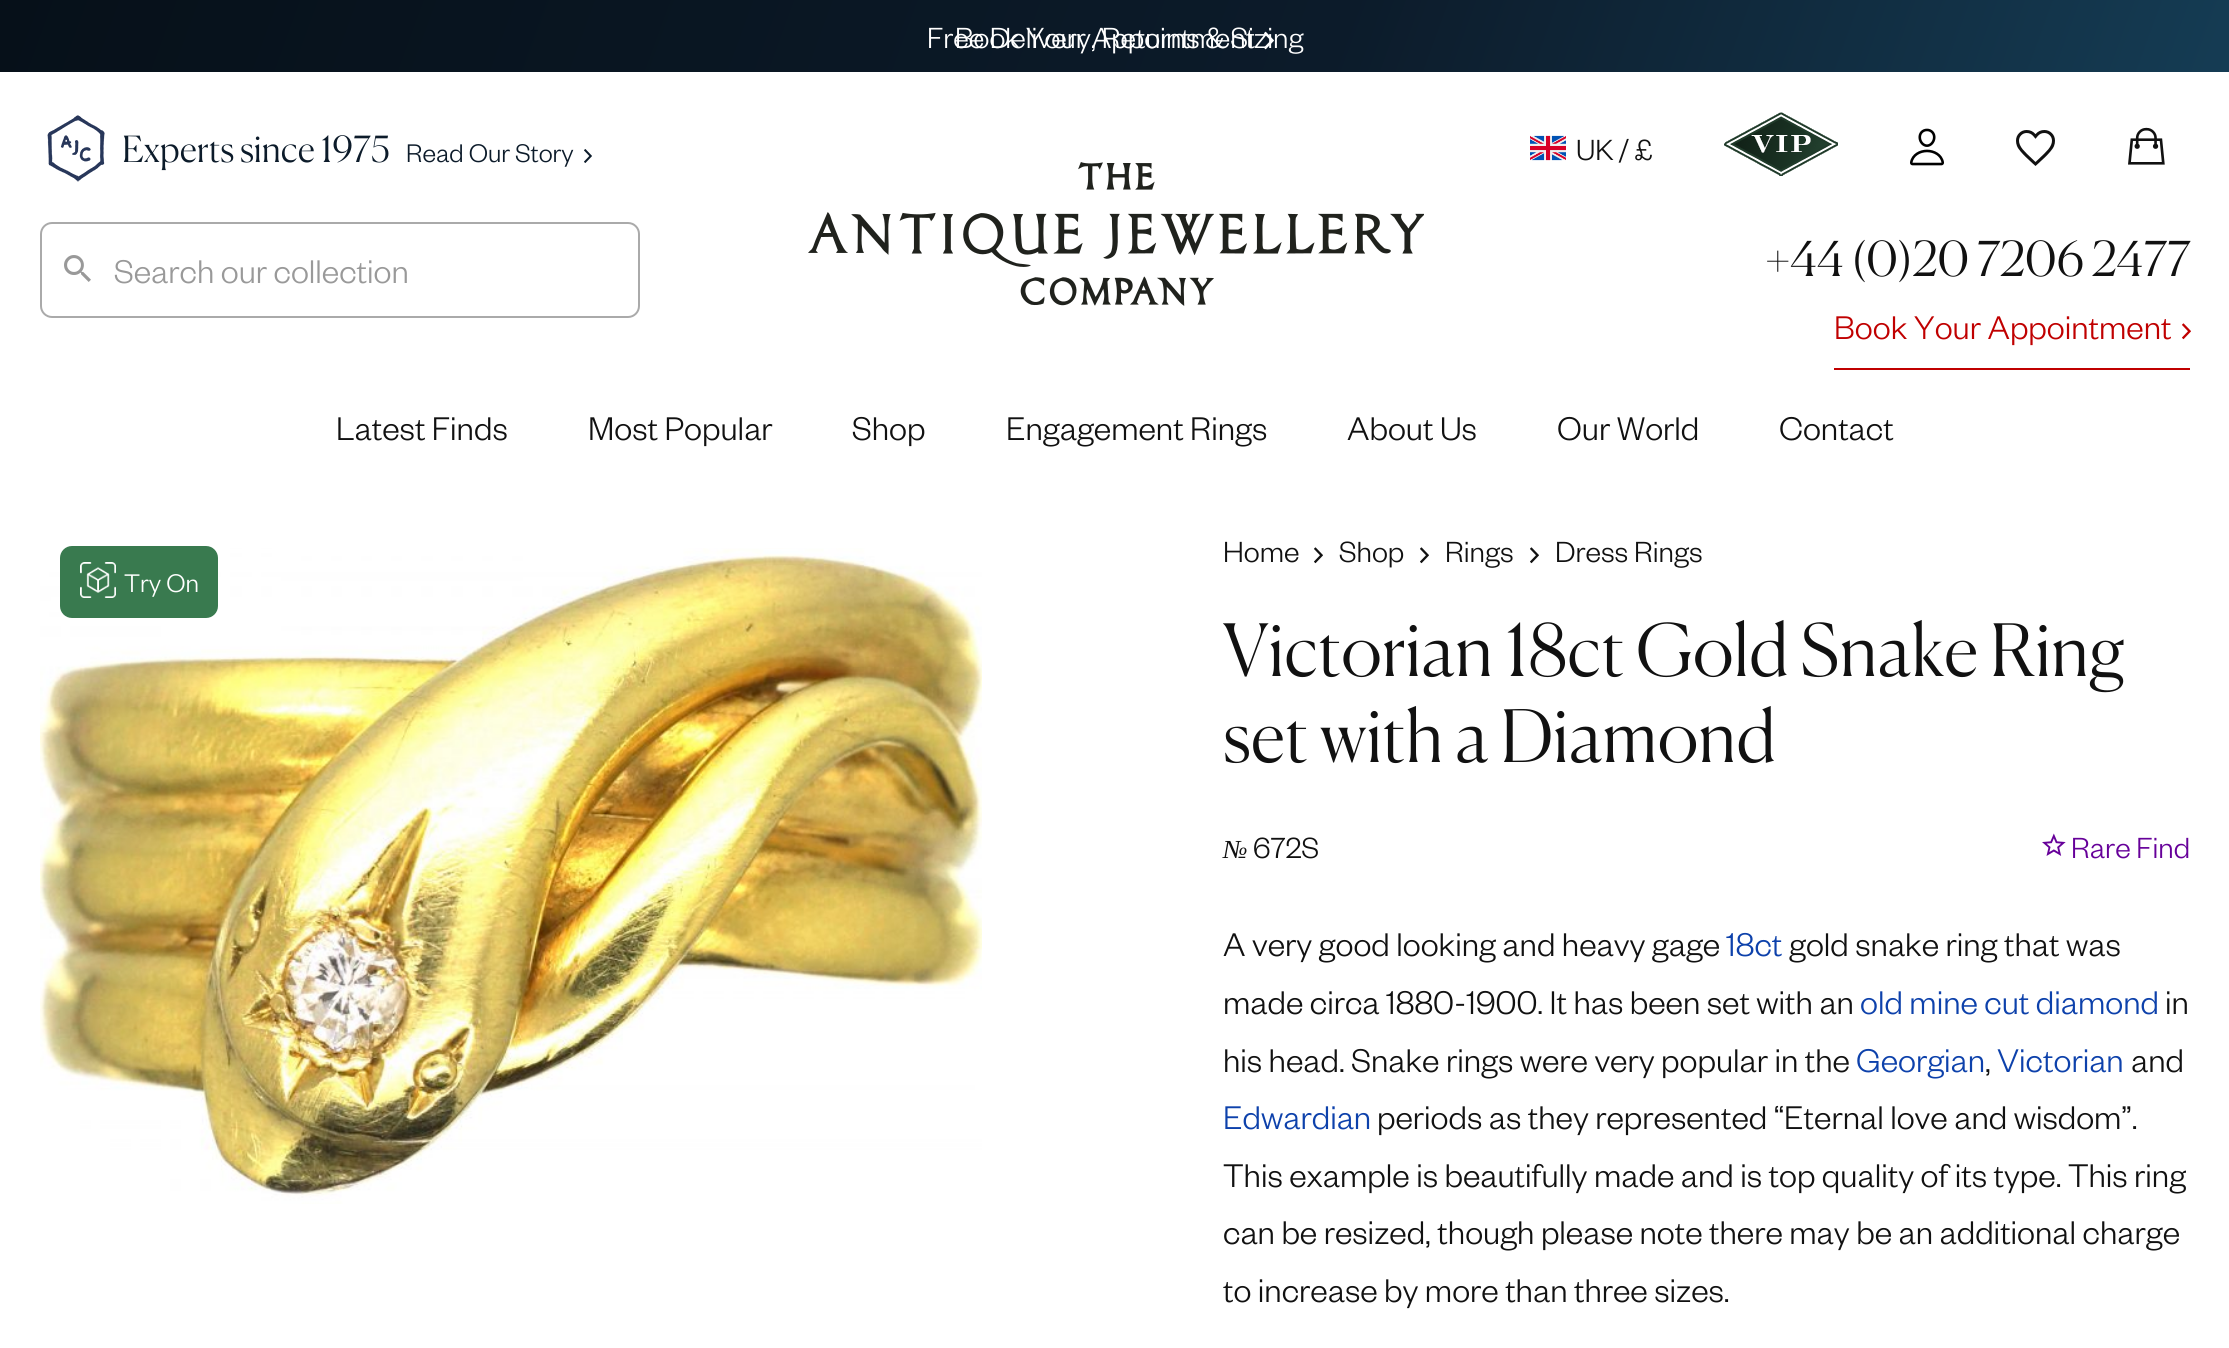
import math
import cairo

surface = cairo.ImageSurface(cairo.FORMAT_RGB24, 2229, 1348)
cr = cairo.Context(surface)
options = cairo.FontOptions()
options.set_hint_metrics(cairo.HINT_METRICS_OFF)
options.set_hint_style(cairo.HINT_STYLE_NONE)
cr.set_font_options(options)
cr.set_miter_limit(4)


def rgb(code):
    cr.set_source_rgb(*(v / 255 for v in bytes.fromhex(code[-6:])))


def rrect(x, y, w, h, r):
    cr.new_sub_path()
    for i, (u, v) in enumerate([(x + w - r, y + h - r), (x + r, y + h - r), (x + r, y + r), (x + w - r, y + r)]):
        cr.arc(u, v, r, i * math.pi / 2, (i + 1) * math.pi / 2)
    cr.close_path()


def image(path, x, y, w, h):
    cr.save()
    cr.set_source_surface(cairo.ImageSurface.create_from_png(path), x, y)
    cr.rectangle(x, y, w, h)
    cr.fill()
    cr.restore()


rgb("#ffffff")
cr.paint()
gradient = cairo.LinearGradient(119, -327, 2111, 399)
gradient.add_color_stop_rgba(0, 0.024, 0.063, 0.098, 1)
gradient.add_color_stop_rgba(0.6, 0.047, 0.106, 0.165, 1)
gradient.add_color_stop_rgba(1, 0.082, 0.235, 0.329, 1)
cr.set_source(gradient)
cr.rectangle(0, 0, 2229, 72)
cr.fill()
image("img/1.png", 1264, 31, 10, 19)
image("img/2.png", 47, 115, 58, 67)
image("img/3.png", 584, 149, 8, 14)
image("img/4.png", 1530, 135, 36, 26)
image("img/5.png", 1724, 112, 114, 64)
image("img/6.png", 1910, 128, 34, 38)
image("img/7.png", 2016, 130, 39, 36)
image("img/8.png", 2128, 127, 37, 38)
rrect(41, 223, 598, 94, 11)
rgb("#aaaaaa")
cr.stroke()
image("img/9.png", 64, 255, 27, 27)
image("img/10.png", 808, 162, 616, 144)
rgb("#c00000")
cr.rectangle(1834, 368, 356, 2)
cr.fill()
image("img/11.png", 2182, 323, 9, 17)
image("img/12.png", 1314, 547, 9, 17)
image("img/12.png", 1420, 547, 9, 17)
image("img/12.png", 1530, 547, 9, 17)
image("img/15.png", 40, 548, 942, 656)
rgb("#397a4f")
rrect(60, 546, 158, 72, 12)
cr.fill()
image("img/13.png", 80, 562, 36, 36)
image("img/14.png", 2042, 833, 24, 23)
cr.select_font_face("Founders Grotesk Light")
cr.set_font_size(32)
rgb("#ffffff")
cr.move_to(955, 48)
cr.show_text("Book Your Appointment")
cr.move_to(927, 48)
cr.show_text("Free Delivery, Returns & Sizing")
cr.select_font_face("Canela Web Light")
cr.set_font_size(36)
rgb("#0c1b2a")
cr.move_to(122, 162)
cr.show_text("Experts since 1975")
cr.select_font_face("Founders Grotesk Light")
cr.set_font_size(28)
cr.move_to(406, 162)
cr.show_text("Read Our Story")
cr.set_font_size(32)
rgb("#111111")
cr.move_to(1576, 160)
cr.show_text("UK / £")
cr.set_font_size(36)
rgb("#999999")
cr.move_to(114, 283)
cr.show_text("Search our collection")
cr.select_font_face("Canela Web Light")
cr.set_font_size(48)
rgb("#111111")
cr.move_to(1765, 276)
cr.show_text("+44 (0)20 7206 2477")
cr.select_font_face("Founders Grotesk Light")
cr.set_font_size(36)
rgb("#c00000")
cr.move_to(1834, 339)
cr.show_text("Book Your Appointment")
rgb("#111111")
for x, y, s in [
    (336, 440, "Latest Finds"),
    (588, 440, "Most Popular"),
    (852, 440, "Shop"),
    (1006, 440, "Engagement Rings"),
    (1347, 440, "About Us"),
    (1557, 440, "Our World"),
    (1779, 440, "Contact"),
]:
    cr.move_to(x, y)
    cr.show_text(s)
cr.set_font_size(32)
for x, y, s in [
    (1223, 562, "Home"),
    (1339, 562, "Shop"),
    (1445, 562, "Rings"),
    (1555, 562, "Dress Rings"),
]:
    cr.move_to(x, y)
    cr.show_text(s)
cr.set_font_size(28)
rgb("#ffffff")
cr.move_to(124, 592)
cr.show_text("Try On")
cr.select_font_face("Canela Web Light")
cr.set_font_size(72)
rgb("#111111")
cr.move_to(1223, 676)
cr.show_text("Victorian 18ct Gold Snake Ring")
cr.move_to(1223, 762)
cr.show_text("set with a Diamond")
cr.select_font_face("Liberation Serif", cairo.FONT_SLANT_ITALIC)
cr.set_font_size(26)
cr.move_to(1223, 858)
cr.show_text("№")
cr.select_font_face("Founders Grotesk Light")
cr.set_font_size(32)
cr.move_to(1253, 858)
cr.show_text("672S")
rgb("#660099")
cr.move_to(2071, 858)
cr.show_text("Rare Find")
cr.set_font_size(36)
rgb("#111111")
cr.move_to(1223, 956)
cr.show_text("A very good looking and heavy gage")
rgb("#0d41ab")
cr.move_to(1726, 956)
cr.show_text("18ct")
rgb("#111111")
cr.move_to(1789, 956)
cr.show_text("gold snake ring that was")
cr.move_to(1223, 1014)
cr.show_text("made circa 1880-1900. It has been set with an")
rgb("#0d41ab")
cr.move_to(1860, 1014)
cr.show_text("old mine cut diamond")
rgb("#111111")
cr.move_to(2165, 1014)
cr.show_text("in")
cr.move_to(1223, 1072)
cr.show_text("his head. Snake rings were very popular in the")
rgb("#0d41ab")
cr.move_to(1856, 1072)
cr.show_text("Georgian")
rgb("#111111")
cr.move_to(1985, 1072)
cr.show_text(",")
rgb("#0d41ab")
cr.move_to(1997, 1072)
cr.show_text("Victorian")
rgb("#111111")
cr.move_to(2131, 1072)
cr.show_text("and")
rgb("#0d41ab")
cr.move_to(1223, 1129)
cr.show_text("Edwardian")
rgb("#111111")
for x, y, s in [
    (1377, 1129, "periods as they represented “Eternal love and wisdom”."),
    (1223, 1187, "This example is beautifully made and is top quality of its type. This ring"),
    (1223, 1244, "can be resized, though please note there may be an additional charge"),
    (1223, 1302, "to increase by more than three sizes."),
]:
    cr.move_to(x, y)
    cr.show_text(s)
surface.write_to_png("page.png")
